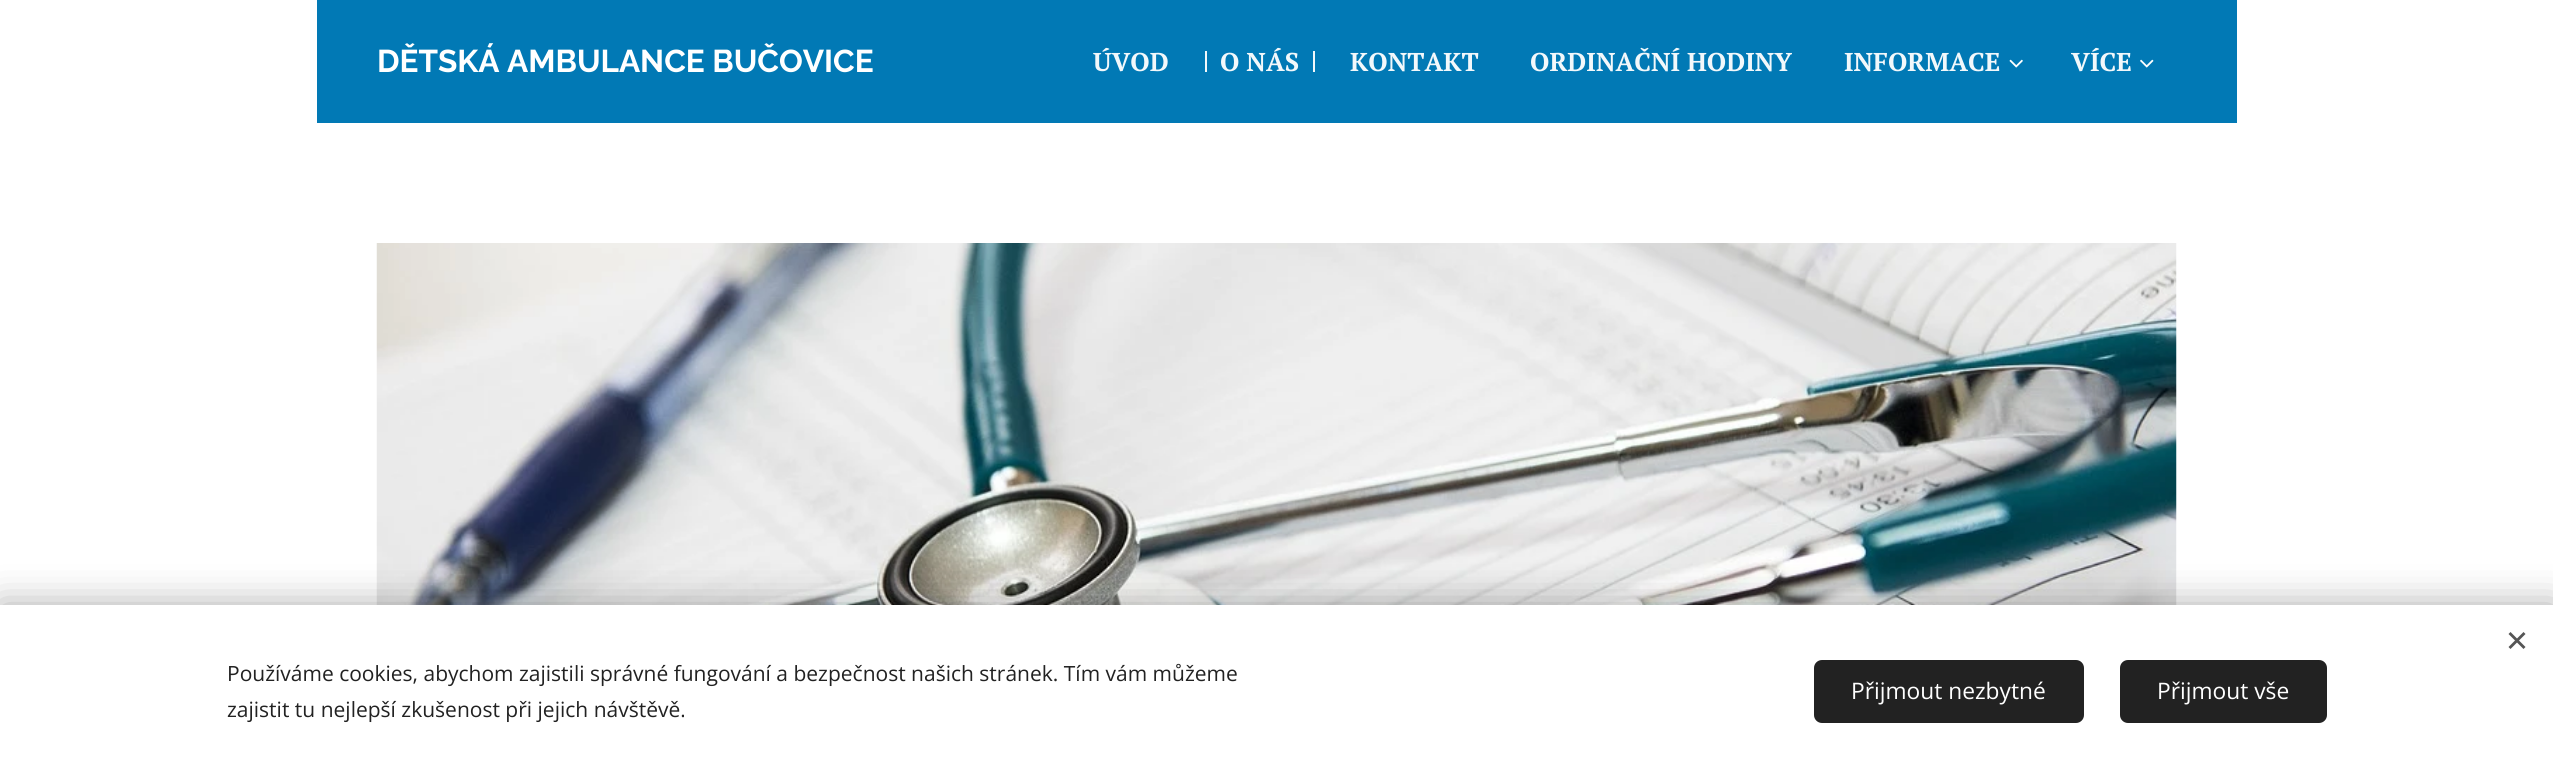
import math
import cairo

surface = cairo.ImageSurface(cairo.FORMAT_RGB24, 2553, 778)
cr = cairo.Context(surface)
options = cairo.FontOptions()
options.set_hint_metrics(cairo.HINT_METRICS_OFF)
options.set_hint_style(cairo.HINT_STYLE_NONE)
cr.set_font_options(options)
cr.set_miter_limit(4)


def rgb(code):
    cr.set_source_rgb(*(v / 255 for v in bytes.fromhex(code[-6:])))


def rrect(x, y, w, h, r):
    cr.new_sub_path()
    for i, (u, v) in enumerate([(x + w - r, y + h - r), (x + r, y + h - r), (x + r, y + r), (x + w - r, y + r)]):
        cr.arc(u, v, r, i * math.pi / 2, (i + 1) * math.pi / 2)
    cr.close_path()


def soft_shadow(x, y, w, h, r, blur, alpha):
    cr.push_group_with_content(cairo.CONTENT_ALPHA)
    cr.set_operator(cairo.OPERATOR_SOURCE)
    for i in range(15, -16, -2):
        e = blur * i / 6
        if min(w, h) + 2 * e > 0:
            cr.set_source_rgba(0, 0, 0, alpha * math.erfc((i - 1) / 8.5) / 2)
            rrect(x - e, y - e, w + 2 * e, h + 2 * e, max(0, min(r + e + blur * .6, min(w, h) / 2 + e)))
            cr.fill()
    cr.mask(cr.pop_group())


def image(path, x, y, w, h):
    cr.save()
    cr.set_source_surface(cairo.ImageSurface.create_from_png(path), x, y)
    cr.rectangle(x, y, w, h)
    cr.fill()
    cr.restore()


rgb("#ffffff")
cr.paint()
for x, y, w, h, color in [
    (317, 0, 1920, 123, "#0179b5"),
    (1205, 51, 2, 21, "#f2f8fb"),
    (1313, 51, 2, 21, "#f2f8fb"),
]:
    rgb(color)
    cr.rectangle(x, y, w, h)
    cr.fill()
image("img/1.png", 2009, 59, 14, 9)
image("img/2.png", 2140, 59, 14, 9)
image("img/3.png", 376, 243, 1801, 362)
rgb("#000000")
soft_shadow(0, 605, 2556, 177, 0, 19, 0.33)
rgb("#ffffff")
cr.rectangle(0, 605, 2553, 173)
cr.fill()
rgb("#555555")
cr.new_path()
cr.move_to(2508.5, 647)
cr.line_to(2523.5, 632)
cr.line_to(2525.5, 634)
cr.line_to(2510.5, 649)
cr.close_path()
cr.fill()
cr.new_path()
cr.move_to(2510.5, 632)
cr.line_to(2525.5, 647)
cr.line_to(2523.5, 649)
cr.line_to(2508.5, 634)
cr.close_path()
cr.fill()
rgb("#222222")
rrect(1814, 660, 270, 63, 8)
cr.fill()
rrect(2120, 660, 207, 63, 8)
cr.fill()
cr.select_font_face("Raleway", cairo.FONT_SLANT_NORMAL, cairo.FONT_WEIGHT_BOLD)
cr.set_font_size(31.5)
rgb("#ffffff")
cr.move_to(377, 72)
cr.show_text("DĚTSKÁ AMBULANCE BUČOVICE")
cr.select_font_face("PT Serif", cairo.FONT_SLANT_NORMAL, cairo.FONT_WEIGHT_BOLD)
cr.set_font_size(25.75)
rgb("#f2f8fb")
for x, y, s in [
    (1093, 71, "ÚVOD"),
    (1220, 71, "O NÁS"),
    (1350, 71, "KONTAKT"),
    (1530, 71, "ORDINAČNÍ HODINY"),
    (1844, 71, "INFORMACE"),
    (2071, 71, "VÍCE"),
]:
    cr.move_to(x, y)
    cr.show_text(s)
cr.select_font_face("Open Sans")
cr.set_font_size(21)
rgb("#222222")
cr.move_to(227, 681)
cr.show_text("Používáme cookies, abychom zajistili správné fungování a bezpečnost našich stránek. Tím vám můžeme")
cr.move_to(227, 717)
cr.show_text("zajistit tu nejlepší zkušenost při jejich návštěvě.")
cr.set_font_size(22.75)
rgb("#ffffff")
cr.move_to(1851, 699)
cr.show_text("Přijmout nezbytné")
cr.move_to(2157, 699)
cr.show_text("Přijmout vše")
surface.write_to_png("page.png")
